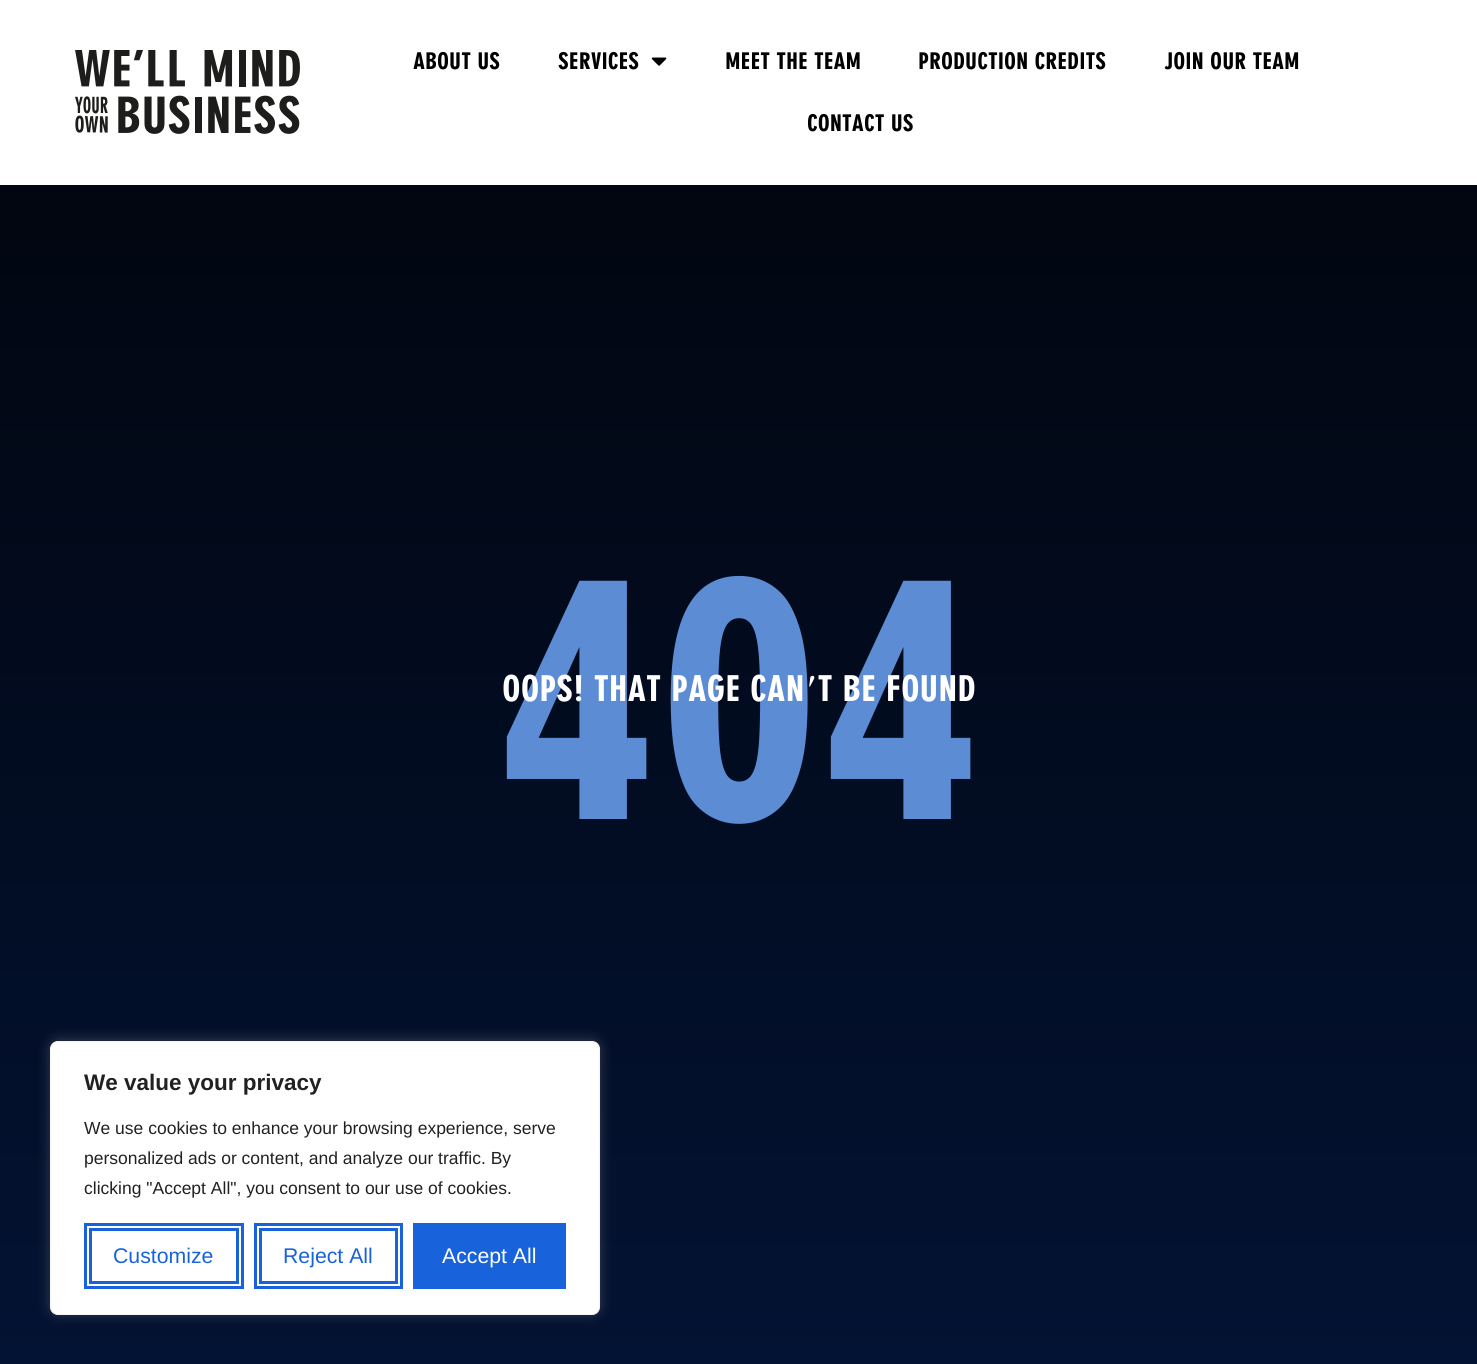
import math
import cairo

surface = cairo.ImageSurface(cairo.FORMAT_RGB24, 1477, 1364)
cr = cairo.Context(surface)
options = cairo.FontOptions()
options.set_hint_metrics(cairo.HINT_METRICS_OFF)
options.set_hint_style(cairo.HINT_STYLE_NONE)
cr.set_font_options(options)
cr.set_miter_limit(4)


def rgb(code):
    cr.set_source_rgb(*(v / 255 for v in bytes.fromhex(code[-6:])))


def rrect(x, y, w, h, r):
    cr.new_sub_path()
    for i, (u, v) in enumerate([(x + w - r, y + h - r), (x + r, y + h - r), (x + r, y + r), (x + w - r, y + r)]):
        cr.arc(u, v, r, i * math.pi / 2, (i + 1) * math.pi / 2)
    cr.close_path()


def soft_shadow(x, y, w, h, r, blur, alpha):
    cr.push_group_with_content(cairo.CONTENT_ALPHA)
    cr.set_operator(cairo.OPERATOR_SOURCE)
    for i in range(15, -16, -2):
        e = blur * i / 6
        if min(w, h) + 2 * e > 0:
            cr.set_source_rgba(0, 0, 0, alpha * math.erfc((i - 1) / 8.5) / 2)
            rrect(x - e, y - e, w + 2 * e, h + 2 * e, max(0, min(r + e + blur * .6, min(w, h) / 2 + e)))
            cr.fill()
    cr.mask(cr.pop_group())


def image(path, x, y, w, h):
    cr.save()
    cr.set_source_surface(cairo.ImageSurface.create_from_png(path), x, y)
    cr.rectangle(x, y, w, h)
    cr.fill()
    cr.restore()


rgb("#ffffff")
cr.paint()
image("img/1.png", 75, 50, 225, 84)
image("img/2.png", 651, 57, 16, 9)
gradient = cairo.LinearGradient(739, 27, 739, 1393)
gradient.add_color_stop_rgba(0, 0.004, 0.016, 0.043, 1)
gradient.add_color_stop_rgba(1, 0.012, 0.075, 0.204, 1)
cr.set_source(gradient)
cr.rectangle(0, 185, 1477, 1179)
cr.fill()
rgb("#acabab")
soft_shadow(50, 1040, 550, 274, 8, 6, 0.3)
rgb("#ffffff")
rrect(50.5, 1041.5, 549, 273, 7.5)
cr.fill_preserve()
rgb("#f4f4f4")
cr.set_line_width(1)
cr.stroke()
cr.rectangle(85.5, 1224.5, 157, 63)
rgb("#1863dc")
cr.set_line_width(3)
cr.stroke()
cr.rectangle(90.5, 1229.5, 147, 53)
cr.stroke()
cr.rectangle(255.5, 1224.5, 146, 63)
cr.stroke()
cr.rectangle(260.5, 1229.5, 136, 53)
cr.stroke()
cr.rectangle(413, 1223, 153, 66)
cr.fill()
cr.select_font_face("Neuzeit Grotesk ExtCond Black")
cr.set_font_size(25)
rgb("#000000")
for x, y, s in [
    (413, 69, "ABOUT US"),
    (558, 69, "SERVICES"),
    (725, 69, "MEET THE TEAM"),
    (918, 69, "PRODUCTION CREDITS"),
    (1164, 69, "JOIN OUR TEAM"),
    (807, 131, "CONTACT US"),
]:
    cr.move_to(x, y)
    cr.show_text(s)
cr.set_font_size(374)
rgb("#5c8cd4")
cr.move_to(496, 819)
cr.show_text("404")
cr.set_font_size(38.75)
rgb("#ffffff")
cr.move_to(502, 701)
cr.show_text("OOPS! THAT PAGE CAN'T BE FOUND")
cr.select_font_face("Liberation Sans", cairo.FONT_SLANT_NORMAL, cairo.FONT_WEIGHT_BOLD)
cr.set_font_size(22.5)
rgb("#212121")
cr.move_to(84, 1090)
cr.show_text("We value your privacy")
cr.select_font_face("Liberation Sans")
cr.set_font_size(17.5)
for x, y, s in [
    (84, 1134, "We use cookies to enhance your browsing experience, serve"),
    (84, 1164, "personalized ads or content, and analyze our traffic. By"),
    (84, 1194, "clicking \"Accept All\", you consent to our use of cookies."),
]:
    cr.move_to(x, y)
    cr.show_text(s)
cr.set_font_size(21.25)
rgb("#1863dc")
cr.move_to(113, 1263)
cr.show_text("Customize")
cr.move_to(283, 1263)
cr.show_text("Reject All")
rgb("#ffffff")
cr.move_to(442, 1263)
cr.show_text("Accept All")
surface.write_to_png("page.png")
